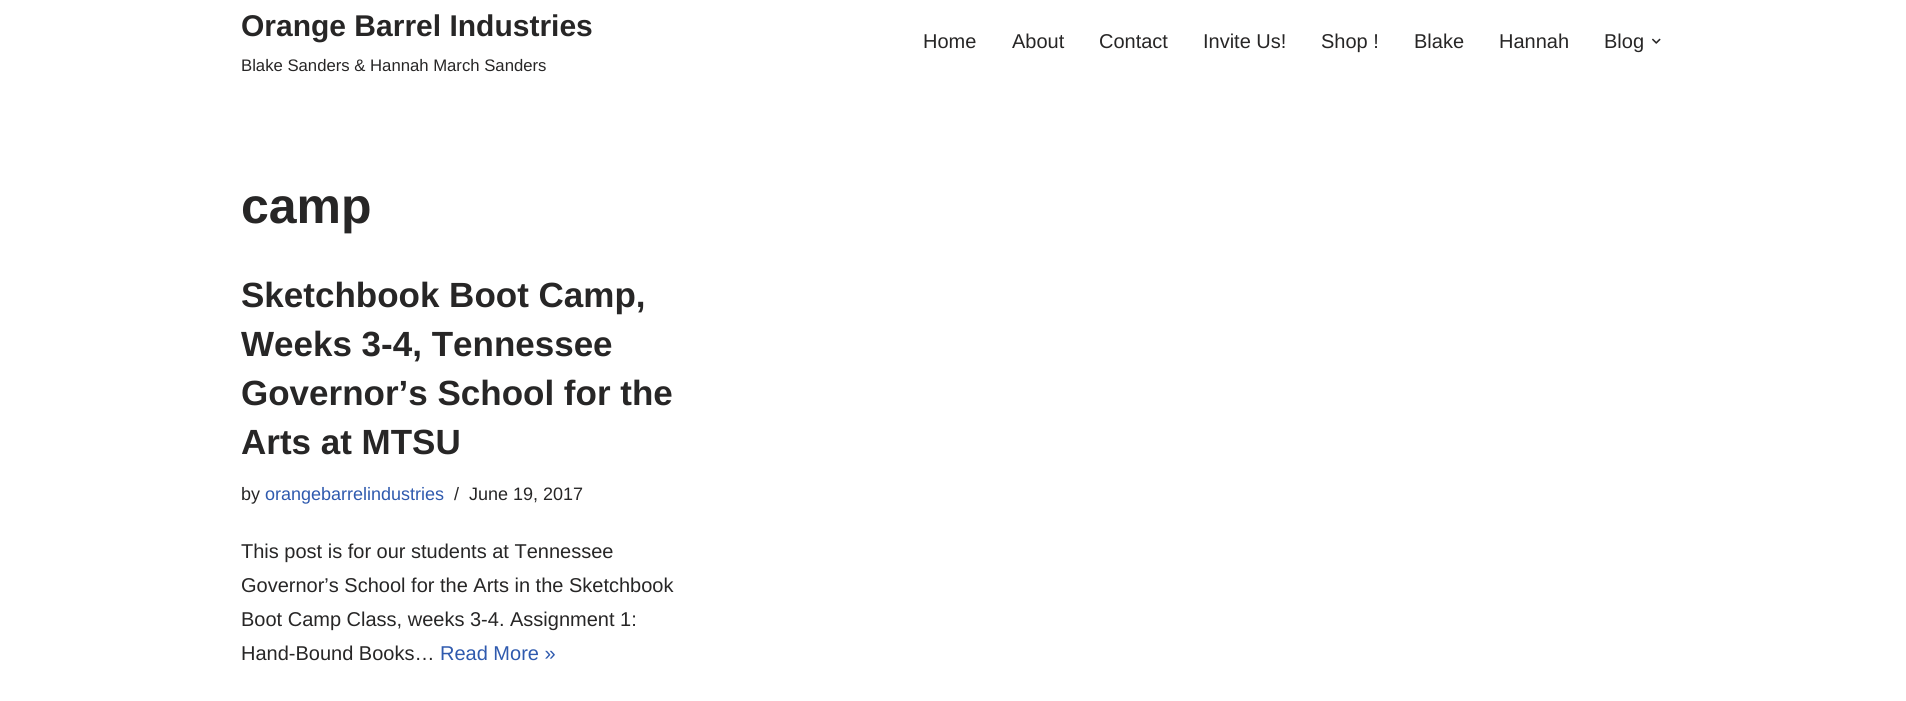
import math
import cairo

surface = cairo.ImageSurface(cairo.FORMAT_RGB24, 1906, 701)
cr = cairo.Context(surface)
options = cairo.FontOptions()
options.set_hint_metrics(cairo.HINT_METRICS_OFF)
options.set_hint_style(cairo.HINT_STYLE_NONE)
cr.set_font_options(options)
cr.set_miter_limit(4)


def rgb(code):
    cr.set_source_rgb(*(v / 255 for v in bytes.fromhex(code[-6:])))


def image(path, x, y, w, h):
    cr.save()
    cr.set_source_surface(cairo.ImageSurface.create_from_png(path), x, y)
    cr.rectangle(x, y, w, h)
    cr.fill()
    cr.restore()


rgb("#ffffff")
cr.paint()
image("img/1.png", 1652, 38, 9, 6)
cr.select_font_face("Liberation Sans", cairo.FONT_SLANT_NORMAL, cairo.FONT_WEIGHT_BOLD)
cr.set_font_size(30)
rgb("#272626")
cr.move_to(241, 36)
cr.show_text("Orange Barrel Industries")
cr.select_font_face("Liberation Sans")
cr.set_font_size(16.7)
cr.move_to(241, 71)
cr.show_text("Blake Sanders & Hannah March Sanders")
cr.set_font_size(20)
for x, y, s in [
    (923, 48, "Home"),
    (1012, 48, "About"),
    (1099, 48, "Contact"),
    (1203, 48, "Invite Us!"),
    (1321, 48, "Shop !"),
    (1414, 48, "Blake"),
    (1499, 48, "Hannah"),
    (1604, 48, "Blog"),
]:
    cr.move_to(x, y)
    cr.show_text(s)
cr.select_font_face("Liberation Sans", cairo.FONT_SLANT_NORMAL, cairo.FONT_WEIGHT_BOLD)
cr.set_font_size(50)
cr.move_to(241, 223)
cr.show_text("camp")
cr.set_font_size(35)
for x, y, s in [
    (241, 307, "Sketchbook Boot Camp,"),
    (241, 356, "Weeks 3-4, Tennessee"),
    (241, 405, "Governor’s School for the"),
    (241, 454, "Arts at MTSU"),
]:
    cr.move_to(x, y)
    cr.show_text(s)
cr.select_font_face("Liberation Sans")
cr.set_font_size(18)
cr.move_to(241, 500)
cr.show_text("by")
rgb("#2f5aae")
cr.move_to(265, 500)
cr.show_text("orangebarrelindustries")
rgb("#272626")
cr.move_to(454, 500)
cr.show_text("/")
cr.move_to(469, 500)
cr.show_text("June 19, 2017")
cr.set_font_size(20)
for x, y, s in [
    (241, 558, "This post is for our students at Tennessee"),
    (241, 592, "Governor’s School for the Arts in the Sketchbook"),
    (241, 626, "Boot Camp Class, weeks 3-4. Assignment 1:"),
    (241, 660, "Hand-Bound Books…"),
]:
    cr.move_to(x, y)
    cr.show_text(s)
rgb("#2f5aae")
cr.move_to(440, 660)
cr.show_text("Read More »")
surface.write_to_png("page.png")
